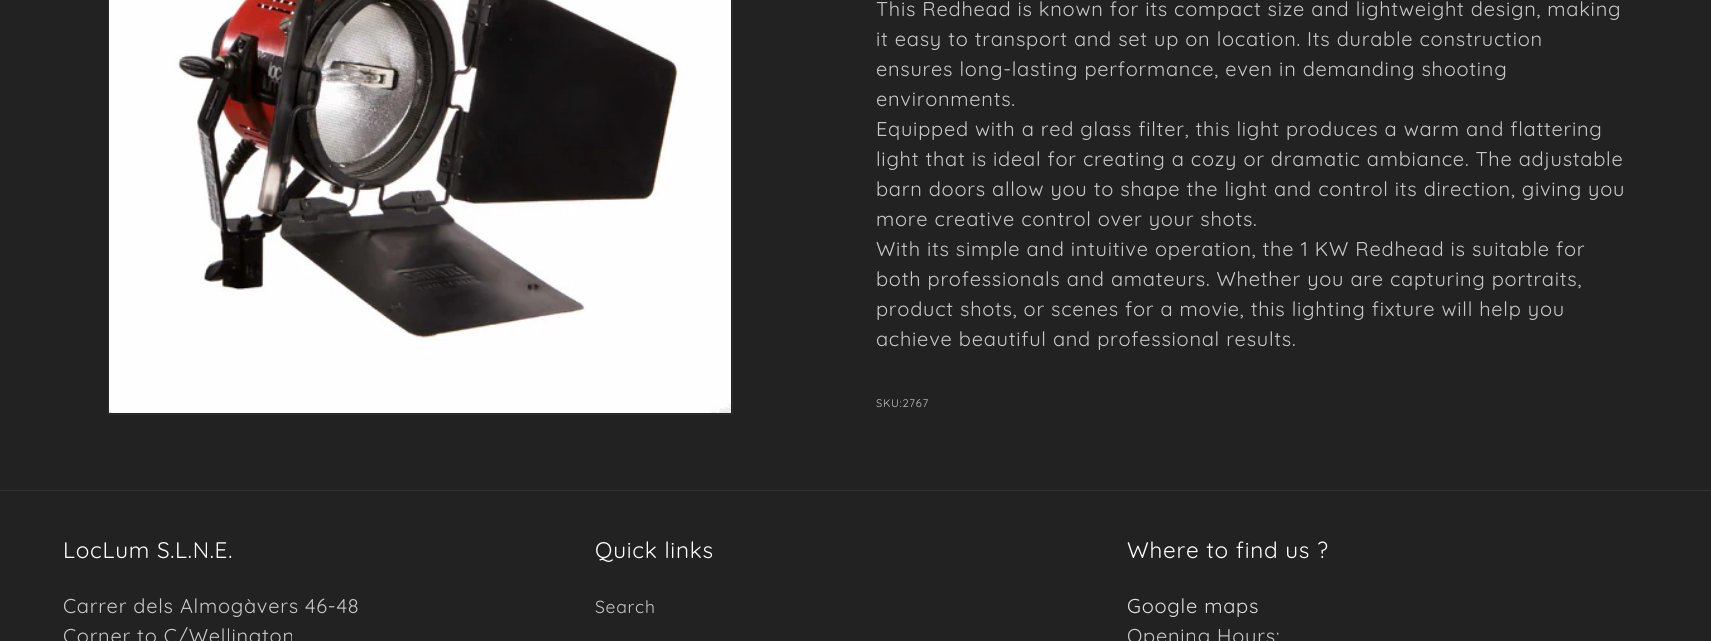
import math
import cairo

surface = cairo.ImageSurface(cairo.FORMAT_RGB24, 1711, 641)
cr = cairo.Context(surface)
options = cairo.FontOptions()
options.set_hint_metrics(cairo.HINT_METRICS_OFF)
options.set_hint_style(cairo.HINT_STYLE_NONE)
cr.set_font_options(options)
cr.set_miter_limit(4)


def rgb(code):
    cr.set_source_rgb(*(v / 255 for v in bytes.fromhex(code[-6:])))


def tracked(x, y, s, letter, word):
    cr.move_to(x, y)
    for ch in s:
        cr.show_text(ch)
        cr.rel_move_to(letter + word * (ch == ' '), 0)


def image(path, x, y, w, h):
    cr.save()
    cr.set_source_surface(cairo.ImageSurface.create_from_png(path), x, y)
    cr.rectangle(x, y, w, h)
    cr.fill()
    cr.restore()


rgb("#222222")
cr.paint()
cr.rectangle(108.5, -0.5, 624, 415)
rgb("#2d2d2d")
cr.set_line_width(1)
cr.stroke()
image("img/1.png", 109, 0, 622, 413)
rgb("#343434")
cr.rectangle(0, 490, 1711, 1)
cr.fill()
cr.select_font_face("Quicksand")
cr.set_font_size(20)
rgb("#c8c8c8")
for x, y, s in [
    (876, 16, "This Redhead is known for its compact size and lightweight design, making"),
    (876, 46, "it easy to transport and set up on location. Its durable construction"),
    (876, 76, "ensures long-lasting performance, even in demanding shooting"),
    (876, 106, "environments."),
    (876, 136, "Equipped with a red glass filter, this light produces a warm and flattering"),
    (876, 166, "light that is ideal for creating a cozy or dramatic ambiance. The adjustable"),
    (876, 196, "barn doors allow you to shape the light and control its direction, giving you"),
    (876, 226, "more creative control over your shots."),
    (876, 256, "With its simple and intuitive operation, the 1 KW Redhead is suitable for"),
    (876, 286, "both professionals and amateurs. Whether you are capturing portraits,"),
    (876, 316, "product shots, or scenes for a movie, this lighting fixture will help you"),
    (876, 346, "achieve beautiful and professional results."),
]:
    tracked(x, y, s, 0.75, 0)
cr.set_font_size(11)
tracked(876, 407, "SKU:2767", 0.75, 0)
cr.set_font_size(22.5)
rgb("#ffffff")
tracked(63, 558, "LocLum S.L.N.E.", 0.75, 0)
cr.set_font_size(20)
rgb("#c8c8c8")
tracked(63, 613, "Carrer dels Almogàvers 46-48", 0.75, 0)
tracked(63, 643, "Corner to C/Wellington", 0.75, 0)
cr.set_font_size(22.5)
rgb("#ffffff")
tracked(595, 558, "Quick links", 0.75, 0)
cr.set_font_size(17.5)
rgb("#c8c8c8")
tracked(595, 613, "Search", 0.75, 0)
cr.set_font_size(22.5)
rgb("#ffffff")
tracked(1127, 558, "Where to find us ?", 0.75, 0)
cr.set_font_size(20)
rgb("#dedede")
tracked(1127, 613, "Google maps", 0.75, 0)
rgb("#c8c8c8")
tracked(1127, 643, "Opening Hours:", 0.75, 0)
surface.write_to_png("page.png")
